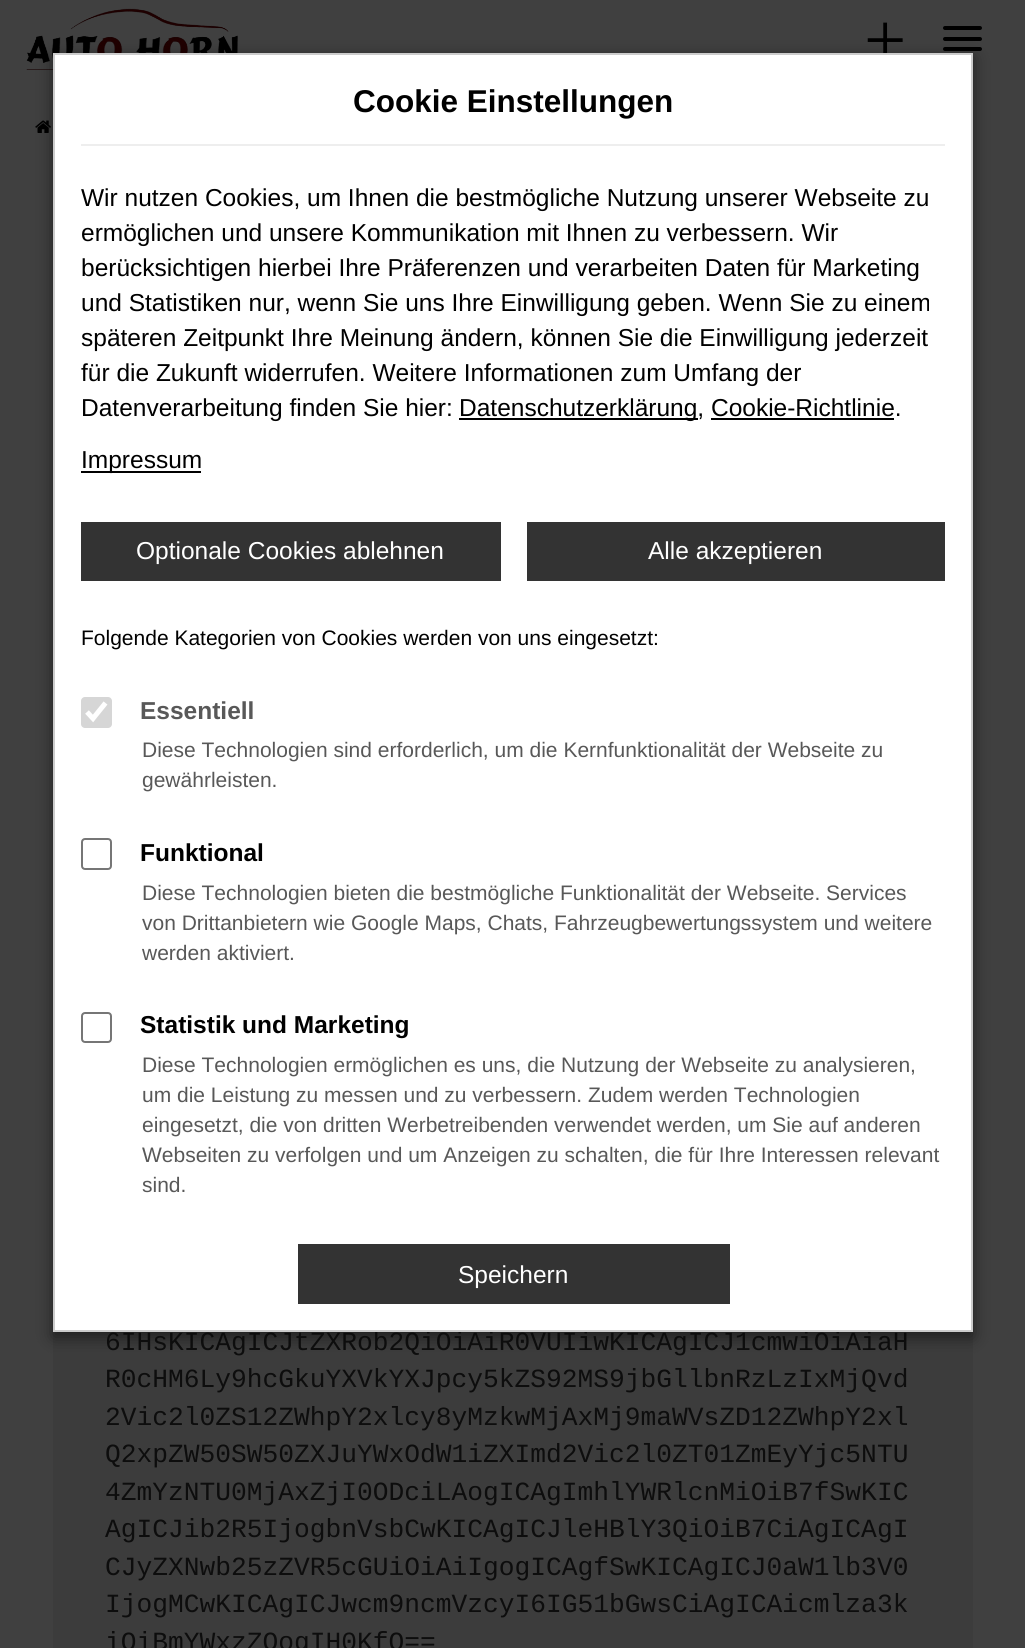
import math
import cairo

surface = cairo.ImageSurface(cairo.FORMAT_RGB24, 1025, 1648)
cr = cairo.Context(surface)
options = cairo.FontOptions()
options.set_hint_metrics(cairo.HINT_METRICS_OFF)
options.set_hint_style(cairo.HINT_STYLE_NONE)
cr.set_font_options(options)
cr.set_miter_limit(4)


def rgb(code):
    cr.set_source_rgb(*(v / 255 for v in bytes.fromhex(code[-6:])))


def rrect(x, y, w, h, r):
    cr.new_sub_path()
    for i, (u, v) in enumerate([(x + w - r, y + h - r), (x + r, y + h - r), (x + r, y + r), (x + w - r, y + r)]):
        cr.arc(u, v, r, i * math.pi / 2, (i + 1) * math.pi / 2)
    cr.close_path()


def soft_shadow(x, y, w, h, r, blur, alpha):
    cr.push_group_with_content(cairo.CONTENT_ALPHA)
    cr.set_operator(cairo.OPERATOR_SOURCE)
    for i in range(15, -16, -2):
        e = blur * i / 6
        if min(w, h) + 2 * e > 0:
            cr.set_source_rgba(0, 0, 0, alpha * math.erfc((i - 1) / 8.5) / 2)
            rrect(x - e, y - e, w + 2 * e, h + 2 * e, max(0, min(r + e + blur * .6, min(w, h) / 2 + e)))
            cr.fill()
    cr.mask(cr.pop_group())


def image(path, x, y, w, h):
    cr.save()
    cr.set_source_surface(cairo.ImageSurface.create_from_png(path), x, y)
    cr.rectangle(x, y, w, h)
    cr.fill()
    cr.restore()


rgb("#404040")
cr.paint()
image("img/1.png", 26, 8, 212, 62)
rgb("#000000")
rrect(943, 26, 39, 4, 2)
cr.fill()
rrect(943, 37, 39, 4, 2)
cr.fill()
rrect(943, 47, 39, 4, 2)
cr.fill()
image("img/2.png", 35, 120, 16, 13)
rgb("#3c3c3c")
cr.rectangle(53, 1332, 920, 316)
cr.fill()
rgb("#000000")
soft_shadow(53, 58, 920, 1279, 0, 8, 0.5)
cr.select_font_face("Liberation Serif")
cr.set_font_size(75)
rgb("#000000")
cr.move_to(864, 65)
cr.show_text("+")
cr.select_font_face("Liberation Mono")
cr.set_font_size(26.25)
rgb("#0d0d0d")
for x, y, s in [
    (105, 1350, "6IHsKICAgICJtZXRob2QiOiAiR0VUIiwKICAgICJ1cmwiOiAiaH"),
    (105, 1387, "R0cHM6Ly9hcGkuYXVkYXJpcy5kZS92MS9jbGllbnRzLzIxMjQvd"),
    (105, 1425, "2Vic2l0ZS12ZWhpY2xlcy8yMzkwMjAxMj9maWVsZD12ZWhpY2xl"),
    (105, 1462, "Q2xpZW50SW50ZXJuYWxOdW1iZXImd2Vic2l0ZT01ZmEyYjc5NTU"),
    (105, 1500, "4ZmYzNTU0MjAxZjI0ODciLAogICAgImhlYWRlcnMiOiB7fSwKIC"),
    (105, 1537, "AgICJib2R5IjogbnVsbCwKICAgICJleHBlY3QiOiB7CiAgICAgI"),
    (105, 1575, "CJyZXNwb25zZVR5cGUiOiAiIgogICAgfSwKICAgICJ0aW1lb3V0"),
    (105, 1612, "IjogMCwKICAgICJwcm9ncmVzcyI6IG51bGwsCiAgICAicmlza3k"),
    (105, 1650, "iOiBmYWxzZQogIH0KfQ=="),
]:
    cr.move_to(x, y)
    cr.show_text(s)
rgb("#ffffff")
cr.rectangle(54, 54, 918, 1277)
cr.fill_preserve()
rgb("#cccccc")
cr.stroke()
rgb("#eeeeee")
cr.rectangle(81, 144, 864, 2)
cr.fill()
cr.select_font_face("Liberation Sans", cairo.FONT_SLANT_NORMAL, cairo.FONT_WEIGHT_BOLD)
cr.set_font_size(31.5)
rgb("#000000")
cr.move_to(353, 112)
cr.show_text("Cookie Einstellungen")
cr.select_font_face("Liberation Sans")
cr.set_font_size(24.5)
for x, y, s in [
    (81, 206, "Wir nutzen Cookies, um Ihnen die bestmögliche Nutzung unserer Webseite zu"),
    (81, 241, "ermöglichen und unsere Kommunikation mit Ihnen zu verbessern. Wir"),
    (81, 276, "berücksichtigen hierbei Ihre Präferenzen und verarbeiten Daten für Marketing"),
    (81, 311, "und Statistiken nur, wenn Sie uns Ihre Einwilligung geben. Wenn Sie zu einem"),
    (81, 346, "späteren Zeitpunkt Ihre Meinung ändern, können Sie die Einwilligung jederzeit"),
    (81, 381, "für die Zukunft widerrufen. Weitere Informationen zum Umfang der"),
    (81, 416, "Datenverarbeitung finden Sie hier:"),
]:
    cr.move_to(x, y)
    cr.show_text(s)
cr.rectangle(459, 418, 239, 2)
cr.fill()
cr.move_to(459, 416)
cr.show_text("Datenschutzerklärung, Cookie-Richtlinie.")
cr.rectangle(711, 418, 183, 2)
cr.fill()
cr.rectangle(81, 471, 120, 2)
cr.fill()
cr.move_to(81, 468)
cr.show_text("Impressum")
rgb("#333333")
cr.rectangle(81, 522, 420, 59)
cr.fill()
rgb("#ffffff")
cr.move_to(136, 559)
cr.show_text("Optionale Cookies ablehnen")
rgb("#333333")
cr.rectangle(527, 522, 418, 59)
cr.fill()
rgb("#ffffff")
cr.move_to(648, 559)
cr.show_text("Alle akzeptieren")
cr.set_font_size(21)
rgb("#000000")
cr.move_to(81, 645)
cr.show_text("Folgende Kategorien von Cookies werden von uns eingesetzt:")
rgb("#d6d6d6")
rrect(81, 697, 31, 31, 4)
cr.fill()
cr.new_path()
cr.move_to(87, 712)
cr.line_to(93, 718.5)
cr.line_to(105.5, 703)
rgb("#ffffff")
cr.set_line_width(5)
cr.stroke()
cr.select_font_face("Liberation Sans", cairo.FONT_SLANT_NORMAL, cairo.FONT_WEIGHT_BOLD)
cr.set_font_size(24.5)
rgb("#585858")
cr.move_to(140, 719)
cr.show_text("Essentiell")
cr.select_font_face("Liberation Sans")
cr.set_font_size(21)
cr.move_to(142, 757)
cr.show_text("Diese Technologien sind erforderlich, um die Kernfunktionalität der Webseite zu")
cr.move_to(142, 787)
cr.show_text("gewährleisten.")
rrect(82, 839, 29, 30, 3)
rgb("#767676")
cr.set_line_width(2)
cr.stroke()
cr.select_font_face("Liberation Sans", cairo.FONT_SLANT_NORMAL, cairo.FONT_WEIGHT_BOLD)
cr.set_font_size(24.5)
rgb("#000000")
cr.move_to(140, 861)
cr.show_text("Funktional")
cr.select_font_face("Liberation Sans")
cr.set_font_size(21)
rgb("#585858")
for x, y, s in [
    (142, 900, "Diese Technologien bieten die bestmögliche Funktionalität der Webseite. Services"),
    (142, 930, "von Drittanbietern wie Google Maps, Chats, Fahrzeugbewertungssystem und weitere"),
    (142, 960, "werden aktiviert."),
]:
    cr.move_to(x, y)
    cr.show_text(s)
rrect(82, 1013, 29, 29, 3)
rgb("#767676")
cr.stroke()
cr.select_font_face("Liberation Sans", cairo.FONT_SLANT_NORMAL, cairo.FONT_WEIGHT_BOLD)
cr.set_font_size(24.5)
rgb("#000000")
cr.move_to(140, 1033)
cr.show_text("Statistik und Marketing")
cr.select_font_face("Liberation Sans")
cr.set_font_size(21)
rgb("#585858")
for x, y, s in [
    (142, 1072, "Diese Technologien ermöglichen es uns, die Nutzung der Webseite zu analysieren,"),
    (142, 1102, "um die Leistung zu messen und zu verbessern. Zudem werden Technologien"),
    (142, 1132, "eingesetzt, die von dritten Werbetreibenden verwendet werden, um Sie auf anderen"),
    (142, 1162, "Webseiten zu verfolgen und um Anzeigen zu schalten, die für Ihre Interessen relevant"),
    (142, 1192, "sind."),
]:
    cr.move_to(x, y)
    cr.show_text(s)
rgb("#333333")
cr.rectangle(298, 1244, 432, 60)
cr.fill()
cr.set_font_size(24.5)
rgb("#ffffff")
cr.move_to(458, 1283)
cr.show_text("Speichern")
surface.write_to_png("page.png")
